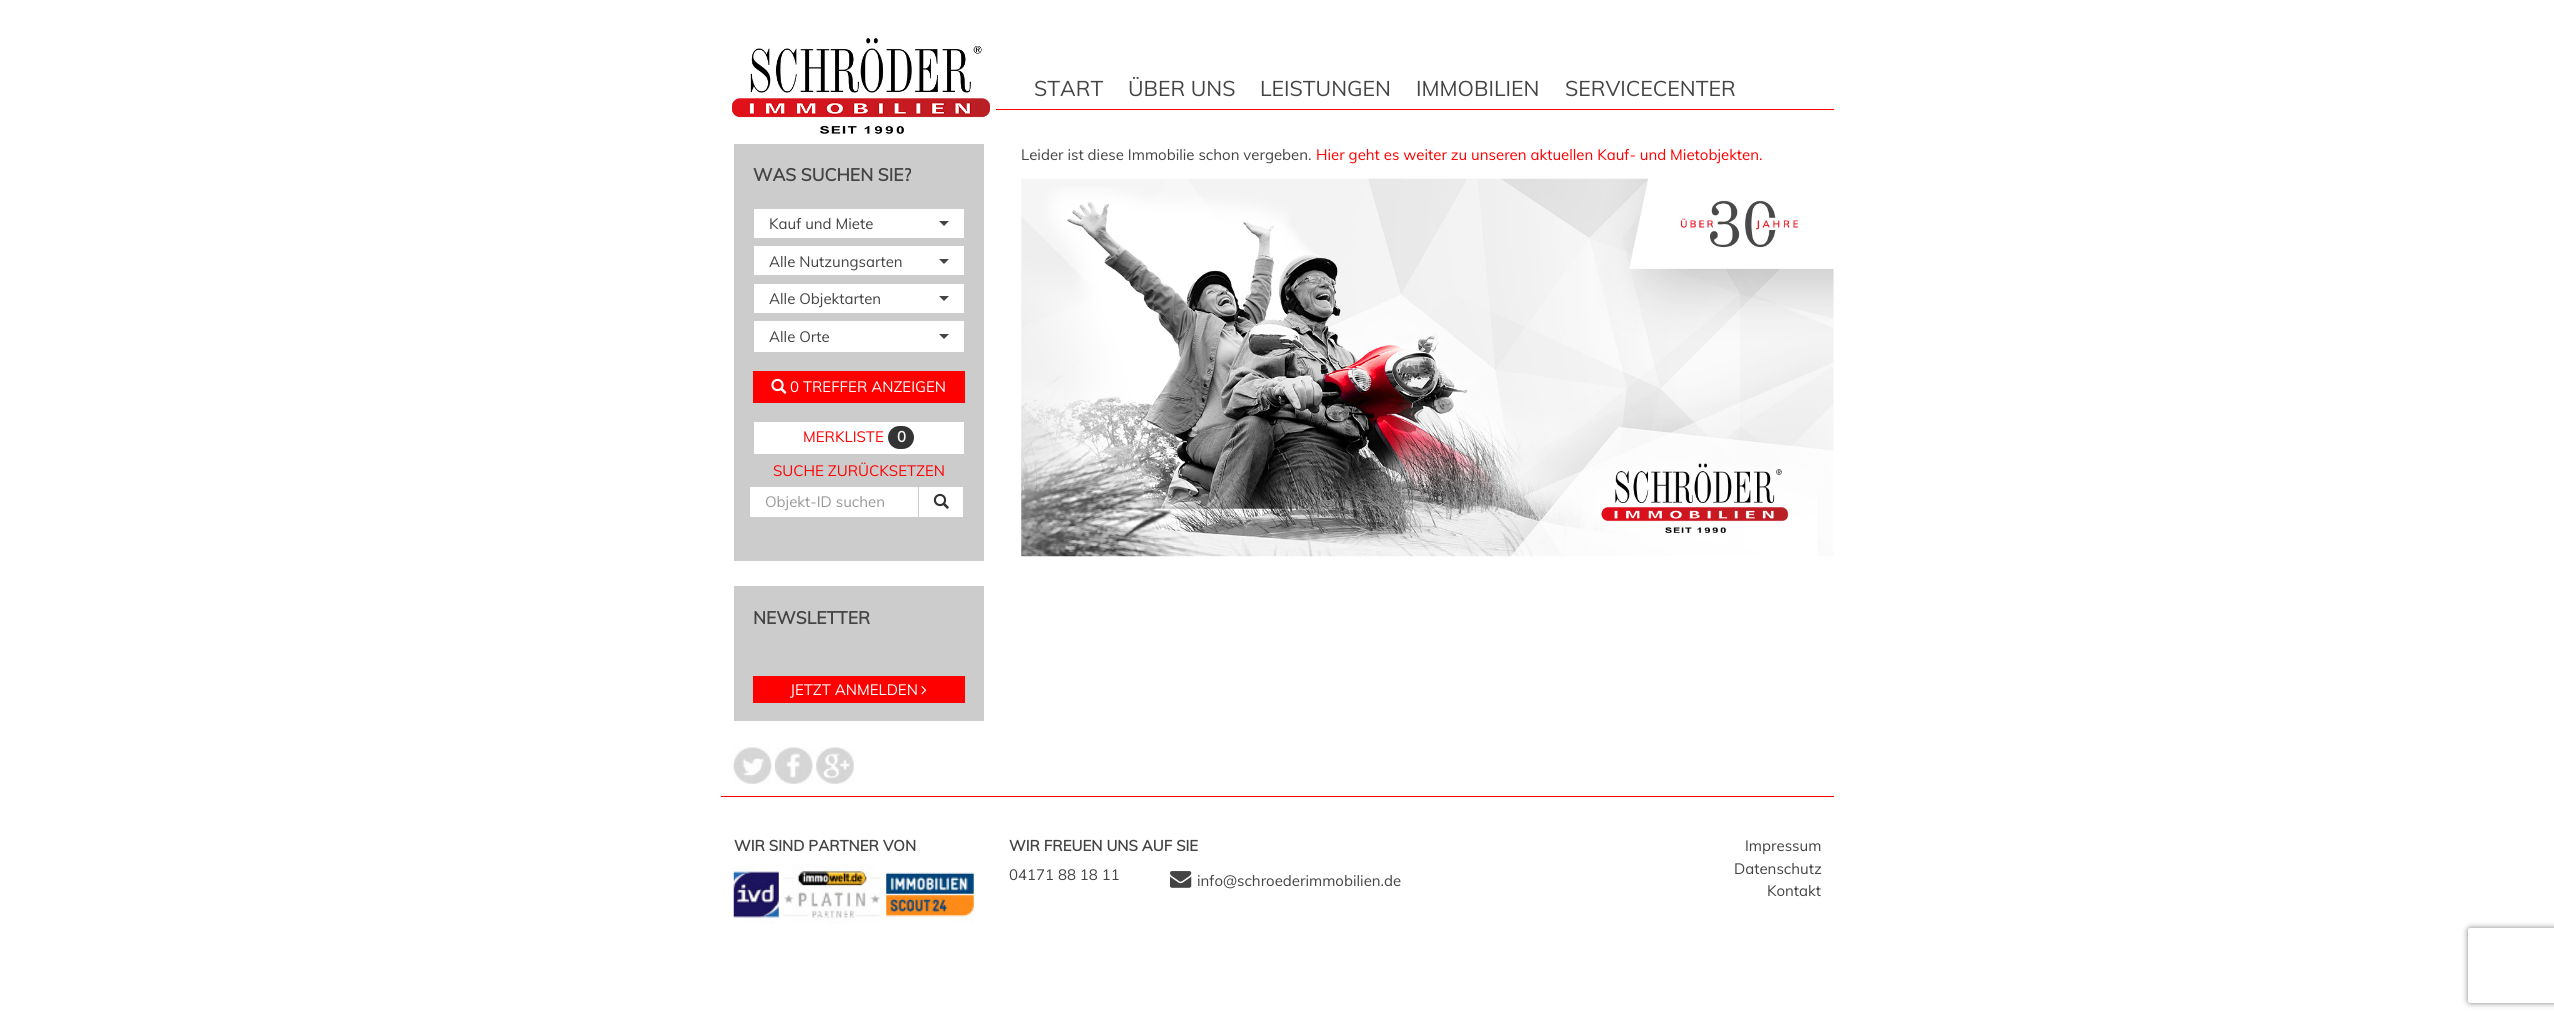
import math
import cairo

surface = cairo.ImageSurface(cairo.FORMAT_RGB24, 2554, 1019)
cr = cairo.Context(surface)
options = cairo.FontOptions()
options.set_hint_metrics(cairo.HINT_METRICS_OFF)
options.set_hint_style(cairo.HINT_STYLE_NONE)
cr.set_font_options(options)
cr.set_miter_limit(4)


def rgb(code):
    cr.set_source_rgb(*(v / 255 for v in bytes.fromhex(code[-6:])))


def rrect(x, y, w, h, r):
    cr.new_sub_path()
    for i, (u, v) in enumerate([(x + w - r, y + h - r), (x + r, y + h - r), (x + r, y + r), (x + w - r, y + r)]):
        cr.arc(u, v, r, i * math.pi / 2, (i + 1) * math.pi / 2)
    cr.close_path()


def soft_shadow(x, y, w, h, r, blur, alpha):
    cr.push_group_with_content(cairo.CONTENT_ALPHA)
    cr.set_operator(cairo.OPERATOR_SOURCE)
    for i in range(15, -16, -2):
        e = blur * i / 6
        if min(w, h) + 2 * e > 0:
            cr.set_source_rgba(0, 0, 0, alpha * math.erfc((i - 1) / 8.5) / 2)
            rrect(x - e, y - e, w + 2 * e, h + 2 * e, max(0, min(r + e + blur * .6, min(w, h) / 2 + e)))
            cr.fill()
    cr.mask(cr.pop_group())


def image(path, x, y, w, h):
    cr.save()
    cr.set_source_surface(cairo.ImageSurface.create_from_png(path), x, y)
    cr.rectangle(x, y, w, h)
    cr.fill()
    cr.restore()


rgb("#ffffff")
cr.paint()
image("img/1.png", 732, 38, 258, 96)
rgb("#ff0000")
cr.rectangle(996, 109, 838, 1)
cr.fill()
image("img/2.png", 1021, 178, 813, 379)
rgb("#cccccc")
cr.rectangle(734, 144, 250, 417)
cr.fill()
rgb("#ffffff")
cr.rectangle(754, 209, 210, 29)
cr.fill()
rgb("#444444")
cr.new_path()
cr.move_to(939, 221)
cr.line_to(949, 221)
cr.line_to(944, 226)
cr.close_path()
cr.fill()
rgb("#ffffff")
cr.rectangle(754, 246, 210, 29)
cr.fill()
rgb("#444444")
cr.new_path()
cr.move_to(939, 259)
cr.line_to(949, 259)
cr.line_to(944, 264)
cr.close_path()
cr.fill()
rgb("#ffffff")
cr.rectangle(754, 284, 210, 29)
cr.fill()
rgb("#444444")
cr.new_path()
cr.move_to(939, 296)
cr.line_to(949, 296)
cr.line_to(944, 301)
cr.close_path()
cr.fill()
rgb("#ffffff")
cr.rectangle(754, 321, 210, 31)
cr.fill()
rgb("#444444")
cr.new_path()
cr.move_to(939, 334)
cr.line_to(949, 334)
cr.line_to(944, 339)
cr.close_path()
cr.fill()
rgb("#ff0000")
cr.rectangle(753, 371, 212, 32)
cr.fill()
image("img/3.png", 771, 378, 16, 16)
rgb("#ffffff")
cr.rectangle(754, 422, 210, 32)
cr.fill()
rgb("#333333")
rrect(888, 426, 26, 23, 11.5)
cr.fill()
rgb("#ffffff")
cr.rectangle(750, 487, 168, 30)
cr.fill()
cr.rectangle(919, 487, 44, 30)
cr.fill()
image("img/4.png", 933, 493, 16, 16)
rgb("#cccccc")
cr.rectangle(734, 586, 250, 135)
cr.fill()
rgb("#ff0000")
cr.rectangle(753, 676, 212, 27)
cr.fill()
image("img/5.png", 921, 686, 6, 9)
image("img/6.png", 733, 747, 39, 37)
image("img/7.png", 775, 747, 38, 37)
image("img/8.png", 816, 747, 38, 37)
cr.rectangle(721, 796, 1113, 1)
cr.fill()
image("img/9.png", 733, 864, 46, 60)
image("img/10.png", 783, 864, 98, 60)
image("img/11.png", 886, 872, 88, 52)
image("img/12.png", 1170, 871, 22, 17)
cr.save()
cr.set_fill_rule(cairo.FILL_RULE_EVEN_ODD)
cr.new_path()
cr.move_to(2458, 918)
cr.line_to(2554, 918)
cr.line_to(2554, 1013)
cr.line_to(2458, 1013)
cr.close_path()
cr.move_to(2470.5, 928)
cr.line_to(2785.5, 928)
cr.curve_to(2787, 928, 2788, 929, 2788, 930.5)
cr.line_to(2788, 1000.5)
cr.curve_to(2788, 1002, 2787, 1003, 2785.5, 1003)
cr.line_to(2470.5, 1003)
cr.curve_to(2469, 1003, 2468, 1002, 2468, 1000.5)
cr.line_to(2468, 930.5)
cr.curve_to(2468, 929, 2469, 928, 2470.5, 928)
cr.close_path()
cr.clip()
rgb("#808080")
soft_shadow(2468, 928, 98, 75, 2.5, 3, 1)
cr.restore()
cr.select_font_face("Muli")
cr.set_font_size(21.25)
rgb("#444444")
for x, y, s in [
    (1034, 96, "START"),
    (1128, 96, "ÜBER UNS"),
    (1260, 96, "LEISTUNGEN"),
    (1416, 96, "IMMOBILIEN"),
    (1565, 96, "SERVICECENTER"),
]:
    cr.move_to(x, y)
    cr.show_text(s)
cr.set_font_size(15)
cr.move_to(1021, 160)
cr.show_text("Leider ist diese Immobilie schon vergeben.")
rgb("#ff0000")
cr.move_to(1316, 160)
cr.show_text("Hier geht es weiter zu unseren aktuellen Kauf- und Mietobjekten.")
cr.select_font_face("Muli", cairo.FONT_SLANT_NORMAL, cairo.FONT_WEIGHT_BOLD)
cr.set_font_size(17.5)
rgb("#444444")
cr.move_to(753, 181)
cr.show_text("WAS SUCHEN SIE?")
cr.select_font_face("Muli")
cr.set_font_size(15)
for x, y, s in [
    (769, 229, "Kauf und Miete"),
    (769, 267, "Alle Nutzungsarten"),
    (769, 304, "Alle Objektarten"),
    (769, 342, "Alle Orte"),
]:
    cr.move_to(x, y)
    cr.show_text(s)
rgb("#ffffff")
cr.move_to(790, 392)
cr.show_text("0 TREFFER ANZEIGEN")
rgb("#ff0000")
cr.move_to(803, 442)
cr.show_text("MERKLISTE")
cr.select_font_face("Muli", cairo.FONT_SLANT_NORMAL, cairo.FONT_WEIGHT_BOLD)
rgb("#f5f5f5")
cr.move_to(897, 442)
cr.show_text("0")
cr.select_font_face("Muli")
rgb("#ff0000")
cr.move_to(773, 476)
cr.show_text("SUCHE ZURÜCKSETZEN")
rgb("#999999")
cr.move_to(765, 507)
cr.show_text("Objekt-ID suchen")
cr.select_font_face("Muli", cairo.FONT_SLANT_NORMAL, cairo.FONT_WEIGHT_BOLD)
cr.set_font_size(17.5)
rgb("#444444")
cr.move_to(753, 624)
cr.show_text("NEWSLETTER")
cr.select_font_face("Muli")
cr.set_font_size(15)
rgb("#ffffff")
cr.move_to(790, 695)
cr.show_text("JETZT ANMELDEN")
cr.select_font_face("Muli", cairo.FONT_SLANT_NORMAL, cairo.FONT_WEIGHT_BOLD)
rgb("#444444")
cr.move_to(734, 851)
cr.show_text("WIR SIND PARTNER VON")
cr.move_to(1009, 851)
cr.show_text("WIR FREUEN UNS AUF SIE")
cr.select_font_face("Muli")
for x, y, s in [
    (1009, 880, "04171 88 18 11"),
    (1197, 886, "info@schroederimmobilien.de"),
    (1745, 851, "Impressum"),
    (1734, 874, "Datenschutz"),
    (1767, 896, "Kontakt"),
]:
    cr.move_to(x, y)
    cr.show_text(s)
surface.write_to_png("page.png")
